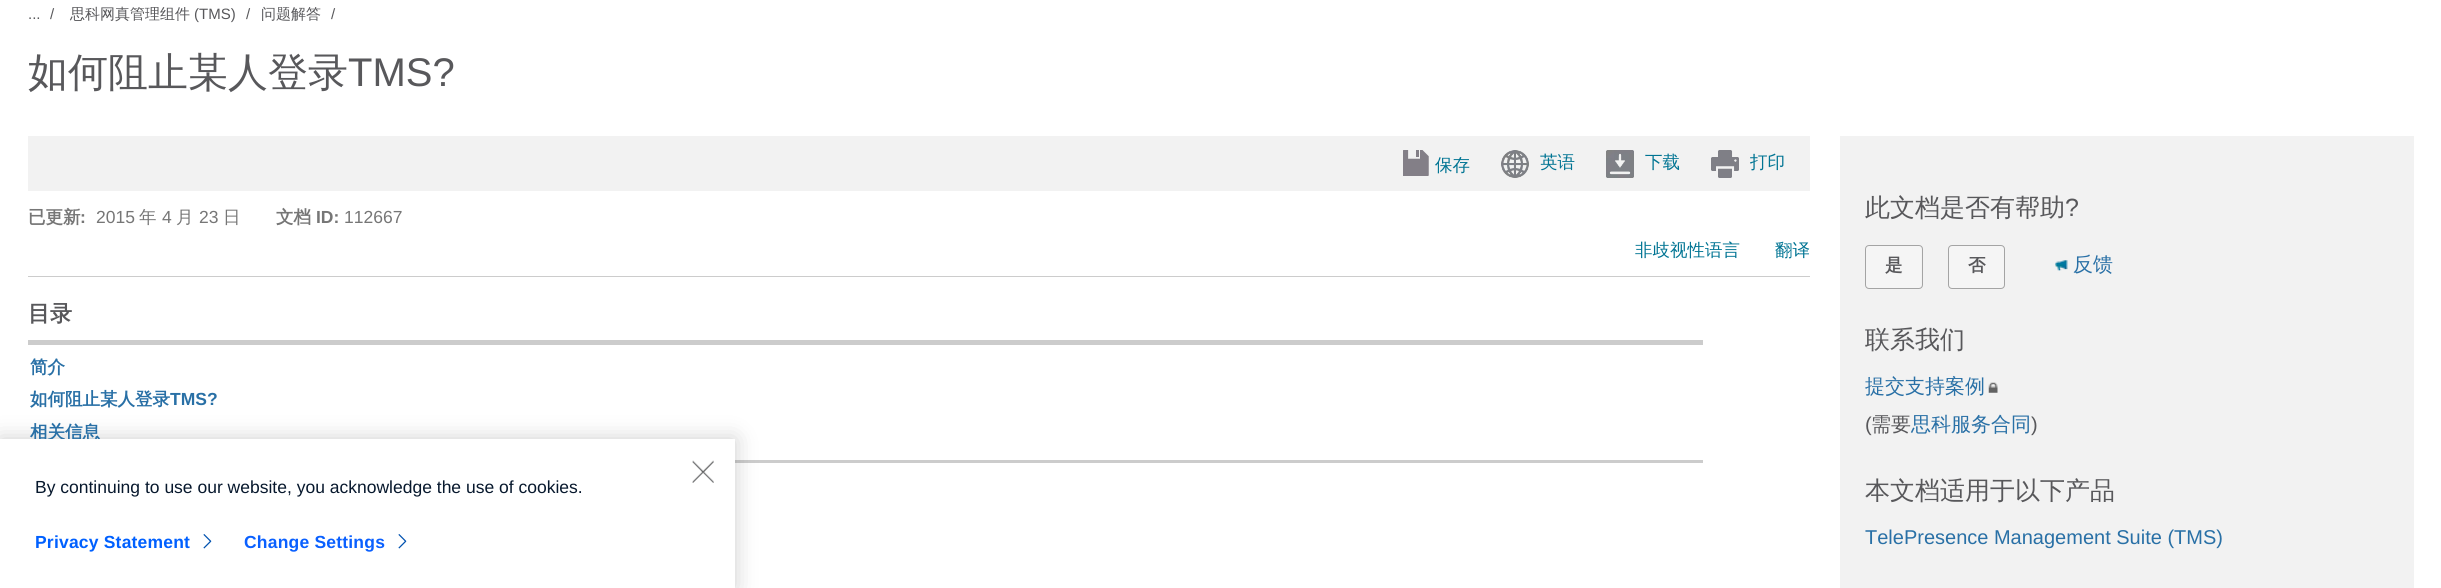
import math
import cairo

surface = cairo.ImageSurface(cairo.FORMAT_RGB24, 2441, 588)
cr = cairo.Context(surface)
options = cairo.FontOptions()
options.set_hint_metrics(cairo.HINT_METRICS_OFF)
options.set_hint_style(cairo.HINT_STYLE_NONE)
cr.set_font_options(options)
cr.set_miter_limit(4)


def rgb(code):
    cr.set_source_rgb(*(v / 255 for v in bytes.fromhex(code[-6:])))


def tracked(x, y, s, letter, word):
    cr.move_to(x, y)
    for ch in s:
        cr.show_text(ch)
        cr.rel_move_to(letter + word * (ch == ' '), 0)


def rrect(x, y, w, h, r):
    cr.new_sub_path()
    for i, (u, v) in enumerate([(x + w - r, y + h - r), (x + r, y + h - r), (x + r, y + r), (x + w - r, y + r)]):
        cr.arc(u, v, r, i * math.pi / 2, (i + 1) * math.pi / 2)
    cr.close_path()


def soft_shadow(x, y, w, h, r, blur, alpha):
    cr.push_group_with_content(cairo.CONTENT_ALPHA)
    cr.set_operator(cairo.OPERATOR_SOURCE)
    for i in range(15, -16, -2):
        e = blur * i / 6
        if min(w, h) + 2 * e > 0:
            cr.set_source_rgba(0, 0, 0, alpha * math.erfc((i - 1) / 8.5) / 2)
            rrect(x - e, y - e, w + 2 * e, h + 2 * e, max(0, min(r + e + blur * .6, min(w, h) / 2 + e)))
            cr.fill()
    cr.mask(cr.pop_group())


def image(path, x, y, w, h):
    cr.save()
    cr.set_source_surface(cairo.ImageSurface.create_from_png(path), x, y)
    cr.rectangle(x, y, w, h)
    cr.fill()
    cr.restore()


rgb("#ffffff")
cr.paint()
rgb("#cccccc")
cr.rectangle(28, 276, 1782, 1)
cr.fill()
rgb("#f2f2f2")
cr.rectangle(28, 136, 1782, 55)
cr.fill()
image("img/1.png", 1403, 150, 26, 26)
image("img/2.png", 1501, 150, 28, 28)
image("img/3.png", 1606, 150, 28, 28)
image("img/4.png", 1711, 150, 28, 28)
for x, y, w, h, color in [
    (735, 460, 968, 3, "#cccccc"),
    (28, 340, 1675, 5, "#cccccc"),
    (1840, 136, 574, 452, "#f2f2f2"),
]:
    rgb(color)
    cr.rectangle(x, y, w, h)
    cr.fill()
rgb("#f5f5f5")
rrect(1866, 246, 55, 42, 2.5)
cr.fill()
rrect(1865.5, 245.5, 57, 43, 3.5)
rgb("#a4a4a4")
cr.set_line_width(1)
cr.stroke()
rgb("#f5f5f5")
rrect(1949, 246, 55, 42, 2.5)
cr.fill()
rrect(1948.5, 245.5, 56, 43, 3.5)
rgb("#a4a4a4")
cr.stroke()
image("img/5.png", 2055, 260, 13, 11)
image("img/6.png", 1988, 382, 10, 11)
rgb("#000000")
soft_shadow(0, 439, 735, 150, 0, 11, 0.2)
cr.select_font_face("Liberation Sans")
cr.set_font_size(15)
rgb("#58585b")
cr.move_to(28, 19)
cr.show_text("...")
cr.move_to(50, 19)
cr.show_text("/")
cr.select_font_face("WenQuanYi Zen Hei Medium")
cr.move_to(70, 19)
cr.show_text("思科网真管理组件")
cr.select_font_face("Liberation Sans")
cr.move_to(194, 19)
cr.show_text("(TMS)")
cr.move_to(246, 19)
cr.show_text("/")
cr.select_font_face("WenQuanYi Zen Hei Medium")
cr.move_to(261, 19)
cr.show_text("问题解答")
cr.select_font_face("Liberation Sans")
cr.move_to(331, 19)
cr.show_text("/")
cr.select_font_face("WenQuanYi Zen Hei Medium")
cr.set_font_size(40)
cr.move_to(28, 86)
cr.show_text("如何阻止某人登录")
cr.select_font_face("Liberation Sans")
cr.move_to(348, 86)
cr.show_text("TMS?")
cr.select_font_face("WenQuanYi Zen Hei Medium")
cr.set_font_size(17.5)
rgb("#007493")
for x, y, s in [
    (1435, 171, "保存"),
    (1540, 168, "英语"),
    (1645, 168, "下载"),
    (1750, 168, "打印"),
]:
    cr.move_to(x, y)
    cr.show_text(s)
cr.select_font_face("WenQuanYi Zen Hei", cairo.FONT_SLANT_NORMAL, cairo.FONT_WEIGHT_BOLD)
rgb("#767676")
cr.move_to(28, 223)
cr.show_text("已更新")
cr.select_font_face("Liberation Sans", cairo.FONT_SLANT_NORMAL, cairo.FONT_WEIGHT_BOLD)
cr.move_to(80, 223)
cr.show_text(":")
cr.select_font_face("Liberation Sans")
cr.move_to(96, 223)
cr.show_text("2015")
cr.select_font_face("WenQuanYi Zen Hei Medium")
cr.move_to(139, 223)
cr.show_text("年")
cr.select_font_face("Liberation Sans")
cr.move_to(162, 223)
cr.show_text("4")
cr.select_font_face("WenQuanYi Zen Hei Medium")
cr.move_to(176, 223)
cr.show_text("月")
cr.select_font_face("Liberation Sans")
cr.move_to(199, 223)
cr.show_text("23")
cr.select_font_face("WenQuanYi Zen Hei Medium")
cr.move_to(223, 223)
cr.show_text("日")
cr.select_font_face("WenQuanYi Zen Hei", cairo.FONT_SLANT_NORMAL, cairo.FONT_WEIGHT_BOLD)
cr.move_to(276, 223)
cr.show_text("文档")
cr.select_font_face("Liberation Sans", cairo.FONT_SLANT_NORMAL, cairo.FONT_WEIGHT_BOLD)
cr.move_to(316, 223)
cr.show_text("ID:")
cr.select_font_face("Liberation Sans")
cr.move_to(344, 223)
cr.show_text("112667")
cr.select_font_face("WenQuanYi Zen Hei Medium")
rgb("#007493")
cr.move_to(1635, 256)
cr.show_text("非歧视性语言")
cr.move_to(1775, 256)
cr.show_text("翻译")
cr.select_font_face("WenQuanYi Zen Hei", cairo.FONT_SLANT_NORMAL, cairo.FONT_WEIGHT_BOLD)
cr.set_font_size(22)
rgb("#58585b")
cr.move_to(28, 321)
cr.show_text("目录")
cr.set_font_size(17.5)
rgb("#2970a6")
cr.move_to(30, 373)
cr.show_text("简介")
cr.move_to(30, 405)
cr.show_text("如何阻止某人登录")
cr.select_font_face("Liberation Sans", cairo.FONT_SLANT_NORMAL, cairo.FONT_WEIGHT_BOLD)
cr.move_to(170, 405)
cr.show_text("TMS?")
cr.select_font_face("WenQuanYi Zen Hei", cairo.FONT_SLANT_NORMAL, cairo.FONT_WEIGHT_BOLD)
cr.move_to(30, 438)
cr.show_text("相关信息")
cr.select_font_face("WenQuanYi Zen Hei Medium")
cr.set_font_size(25)
rgb("#58585b")
cr.move_to(1865, 216)
cr.show_text("此文档是否有帮助")
cr.select_font_face("Liberation Sans")
cr.move_to(2065, 216)
cr.show_text("?")
cr.select_font_face("WenQuanYi Zen Hei", cairo.FONT_SLANT_NORMAL, cairo.FONT_WEIGHT_BOLD)
cr.set_font_size(17.5)
cr.move_to(1885, 271)
cr.show_text("是")
cr.move_to(1968, 271)
cr.show_text("否")
cr.select_font_face("WenQuanYi Zen Hei Medium")
cr.set_font_size(20)
rgb("#2970a6")
cr.move_to(2073, 271)
cr.show_text("反馈")
cr.set_font_size(25)
rgb("#58585b")
cr.move_to(1865, 348)
cr.show_text("联系我们")
cr.set_font_size(20)
rgb("#2970a6")
cr.move_to(1865, 393)
cr.show_text("提交支持案例")
cr.select_font_face("Liberation Sans")
rgb("#58585b")
cr.move_to(1865, 431)
cr.show_text("(")
cr.select_font_face("WenQuanYi Zen Hei Medium")
cr.move_to(1871, 431)
cr.show_text("需要")
rgb("#2970a6")
cr.move_to(1911, 431)
cr.show_text("思科服务合同")
cr.select_font_face("Liberation Sans")
rgb("#58585b")
cr.move_to(2031, 431)
cr.show_text(")")
cr.select_font_face("WenQuanYi Zen Hei Medium")
cr.set_font_size(25)
cr.move_to(1865, 499)
cr.show_text("本文档适用于以下产品")
cr.select_font_face("Liberation Sans")
cr.set_font_size(20)
rgb("#2970a6")
cr.move_to(1865, 544)
cr.show_text("TelePresence Management Suite (TMS)")
rgb("#ffffff")
cr.rectangle(0, 439, 735, 149)
cr.fill()
image("img/7.png", 692, 460, 22, 23)
cr.set_font_size(17.5)
rgb("#07182d")
cr.move_to(35, 493)
cr.show_text("By continuing to use our website, you acknowledge the use of cookies.")
cr.select_font_face("Liberation Sans", cairo.FONT_SLANT_NORMAL, cairo.FONT_WEIGHT_BOLD)
rgb("#0060ff")
tracked(35, 548, "Privacy Statement", 0.2, 0)
image("img/8.png", 203, 534, 9, 15)
rgb("#0a60ff")
tracked(244, 548, "Change Settings", 0.2, 0)
image("img/8.png", 398, 534, 9, 15)
surface.write_to_png("page.png")
